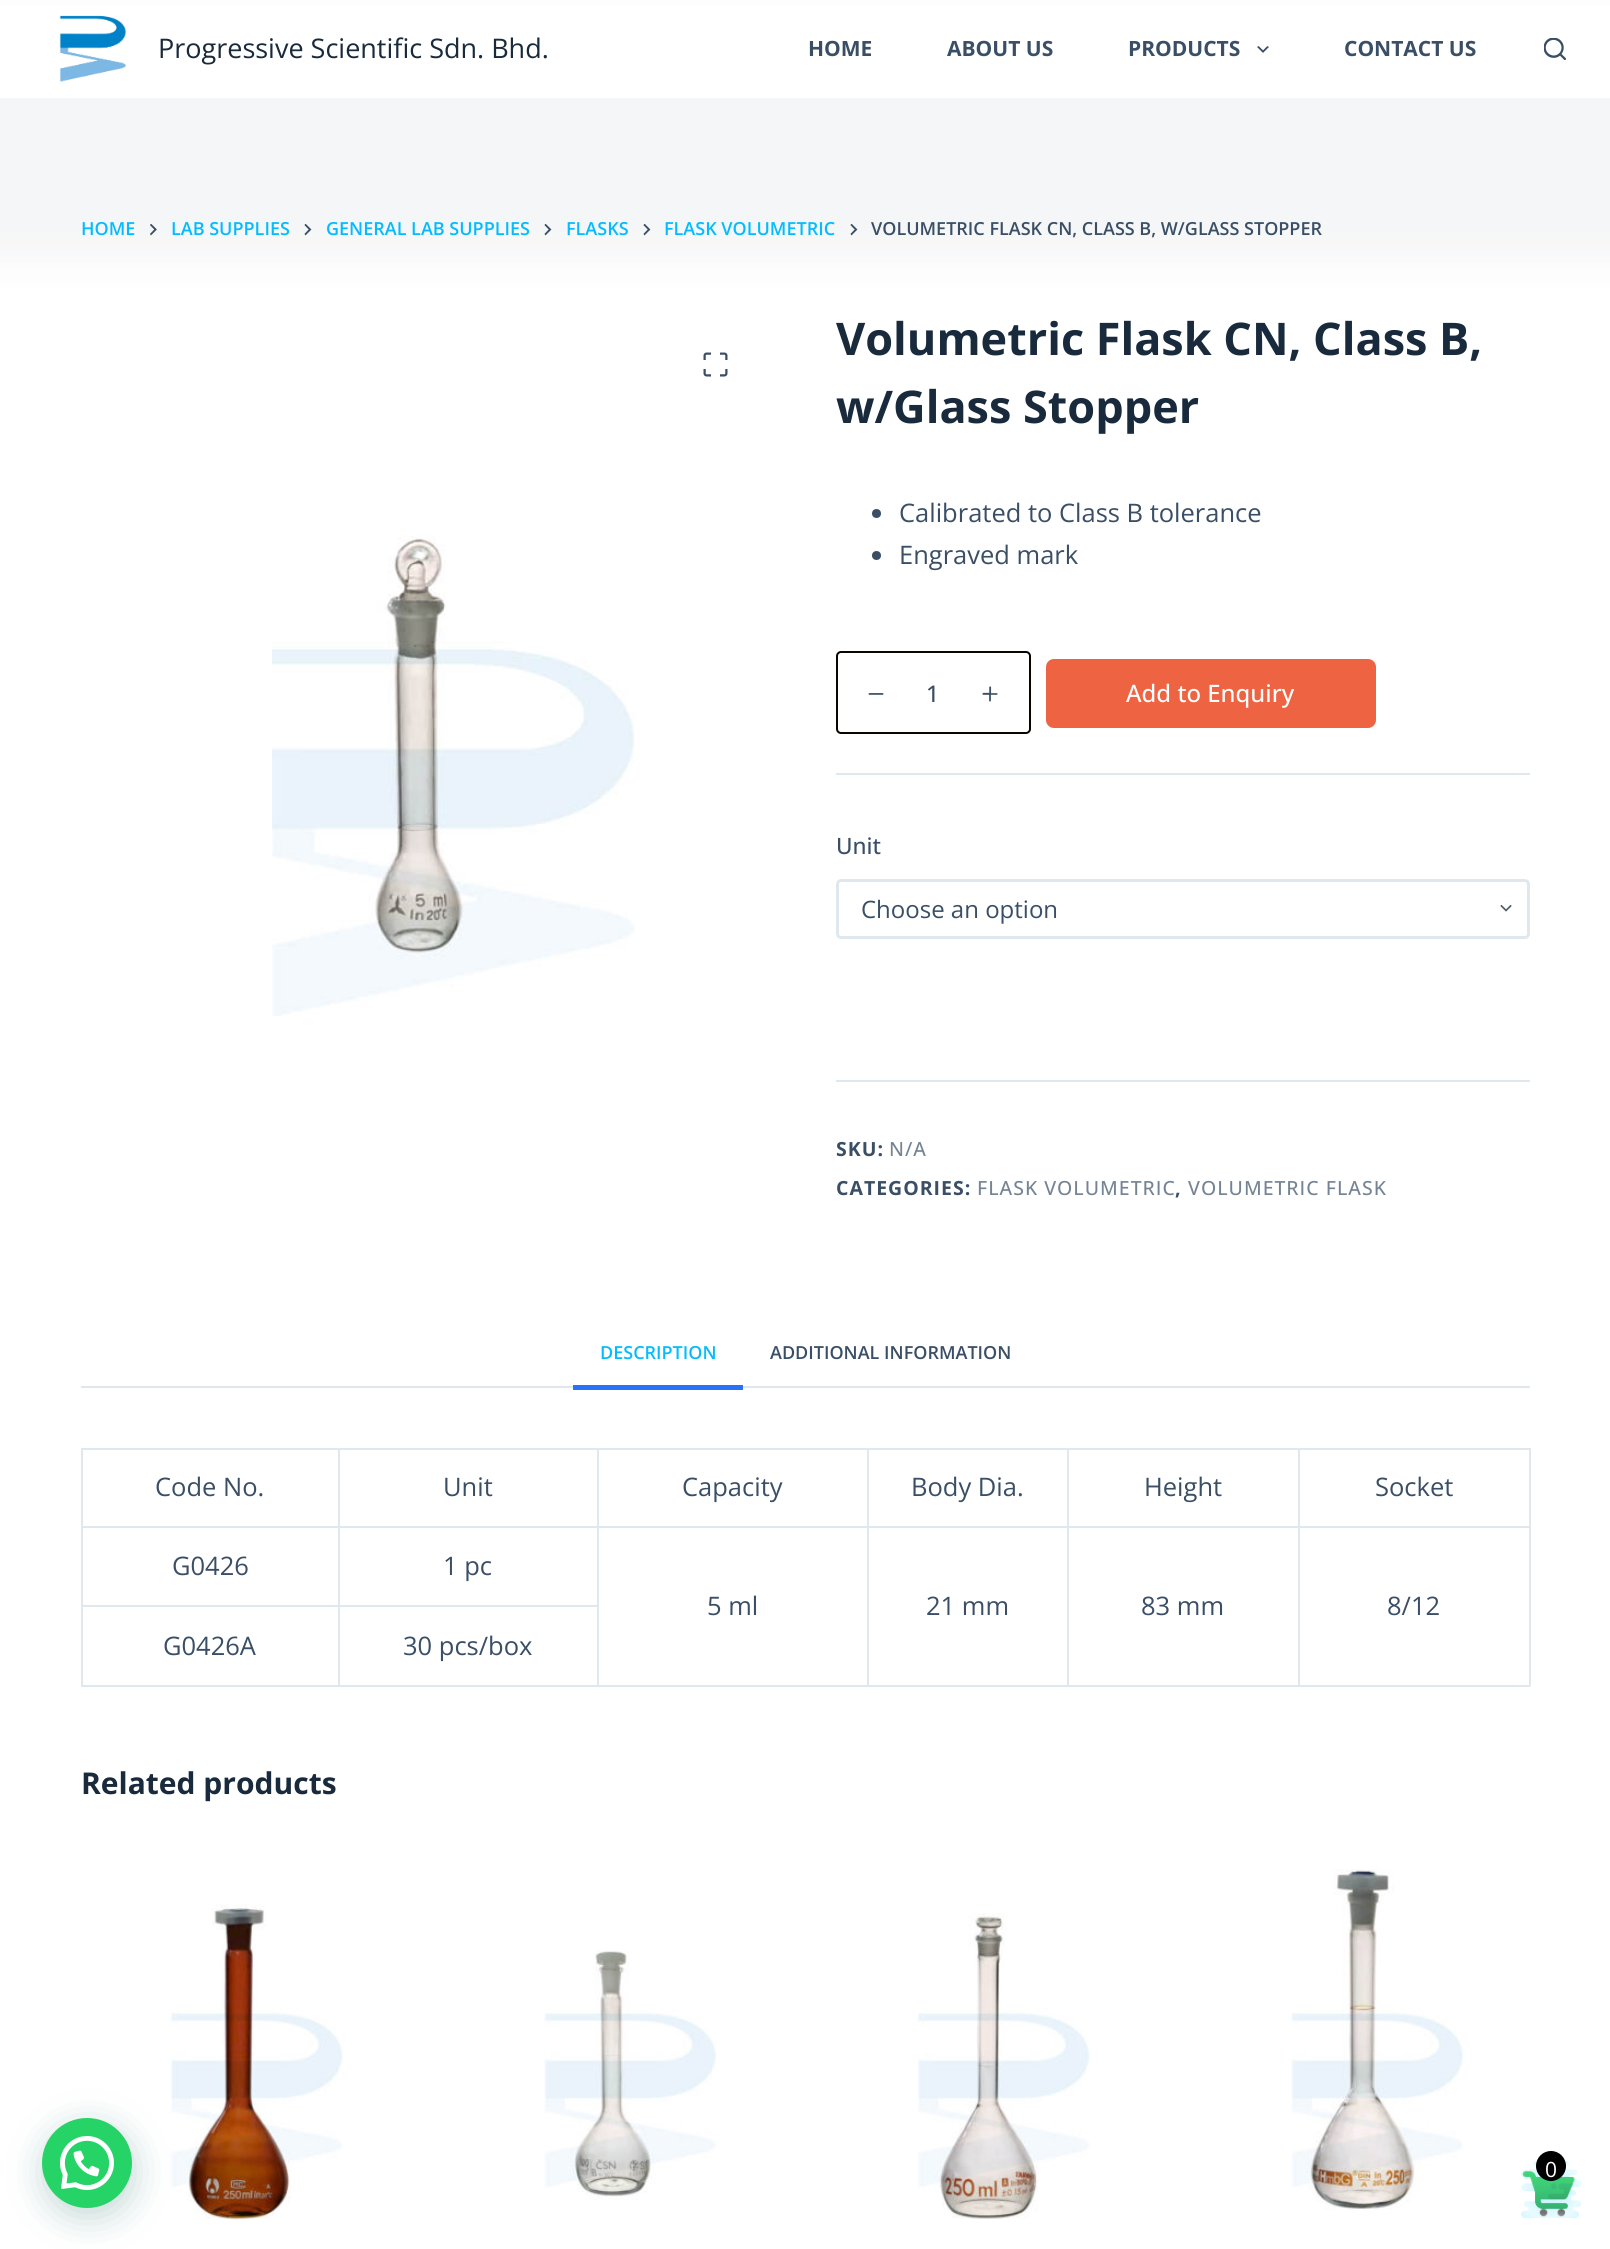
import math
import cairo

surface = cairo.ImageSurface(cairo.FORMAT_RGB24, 1610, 2249)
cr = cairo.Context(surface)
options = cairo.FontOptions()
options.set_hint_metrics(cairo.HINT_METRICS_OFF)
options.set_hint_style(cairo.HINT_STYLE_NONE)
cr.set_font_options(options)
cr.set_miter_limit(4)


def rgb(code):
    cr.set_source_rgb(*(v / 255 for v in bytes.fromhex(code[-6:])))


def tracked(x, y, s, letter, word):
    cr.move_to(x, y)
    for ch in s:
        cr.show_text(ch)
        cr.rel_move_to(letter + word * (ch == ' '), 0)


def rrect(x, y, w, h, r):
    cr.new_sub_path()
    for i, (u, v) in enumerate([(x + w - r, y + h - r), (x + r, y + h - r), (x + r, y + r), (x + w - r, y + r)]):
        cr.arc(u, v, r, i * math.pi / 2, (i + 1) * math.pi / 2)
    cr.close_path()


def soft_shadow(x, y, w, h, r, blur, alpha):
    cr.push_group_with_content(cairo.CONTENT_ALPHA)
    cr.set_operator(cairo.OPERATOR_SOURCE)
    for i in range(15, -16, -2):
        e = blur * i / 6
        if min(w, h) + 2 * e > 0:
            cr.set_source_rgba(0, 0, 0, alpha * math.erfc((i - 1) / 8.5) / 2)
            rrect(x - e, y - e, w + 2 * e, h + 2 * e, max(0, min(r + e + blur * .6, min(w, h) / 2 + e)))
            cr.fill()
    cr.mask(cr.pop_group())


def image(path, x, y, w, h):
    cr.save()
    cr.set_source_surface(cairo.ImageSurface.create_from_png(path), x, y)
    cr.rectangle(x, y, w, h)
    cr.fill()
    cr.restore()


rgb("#ffffff")
cr.paint()
image("img/4.png", 150, 224, 7, 12)
image("img/5.png", 304, 224, 8, 12)
image("img/5.png", 544, 224, 8, 12)
image("img/5.png", 643, 224, 8, 12)
image("img/5.png", 850, 224, 8, 12)
rgb("#2c3e50")
soft_shadow(-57, 18, 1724, 242, 0, 19, 0.05)
rgb("#ffffff")
cr.rectangle(0, 5, 1610, 93)
cr.fill()
image("img/1.png", 59, 15, 68, 67)
image("img/2.png", 1257, 46, 12, 7)
image("img/3.png", 1544, 38, 22, 22)
image("img/6.png", 703, 352, 25, 25)
image("img/7.png", 272, 535, 363, 481)
rgb("#3a4f66")
cr.arc(876.5, 513.5, 4.5, 0, 2 * math.pi)
cr.fill()
cr.arc(876.5, 555.5, 4.5, 0, 2 * math.pi)
cr.fill()
rrect(837, 652, 193, 81, 4)
rgb("#0a0500")
cr.stroke()
image("img/8.png", 868, 693, 16, 2)
image("img/9.png", 982, 686, 16, 16)
rgb("#ee6443")
rrect(1046, 659, 330, 69, 8)
cr.fill()
rgb("#e1e8ed")
cr.rectangle(836, 773, 694, 2)
cr.fill()
image("img/10.png", 1500, 905, 12, 7)
rrect(837.5, 880.5, 691, 57, 3.5)
cr.set_line_width(3)
cr.stroke()
for x, y, w, h, color in [
    (836, 1080, 694, 2, "#e1e8ed"),
    (81, 1386, 1449, 2, "#e1e8ed"),
    (573, 1385, 170, 5, "#2872fa"),
    (81, 1448, 1449, 2, "#e1e8ed"),
    (1529, 1448, 2, 238, "#e1e8ed"),
    (81, 1685, 1449, 2, "#e1e8ed"),
    (81, 1448, 2, 238, "#e1e8ed"),
    (1298, 1526, 232, 2, "#e1e8ed"),
    (1298, 1526, 2, 160, "#e1e8ed"),
    (1067, 1526, 232, 2, "#e1e8ed"),
    (1067, 1526, 2, 160, "#e1e8ed"),
    (867, 1526, 201, 2, "#e1e8ed"),
    (867, 1526, 2, 160, "#e1e8ed"),
    (597, 1526, 272, 2, "#e1e8ed"),
    (338, 1605, 261, 2, "#e1e8ed"),
    (597, 1526, 2, 160, "#e1e8ed"),
    (338, 1526, 261, 2, "#e1e8ed"),
    (338, 1605, 2, 81, "#e1e8ed"),
    (81, 1605, 258, 2, "#e1e8ed"),
    (338, 1526, 2, 81, "#e1e8ed"),
    (81, 1526, 258, 2, "#e1e8ed"),
    (338, 1448, 2, 79, "#e1e8ed"),
    (597, 1448, 2, 79, "#e1e8ed"),
    (867, 1448, 2, 79, "#e1e8ed"),
    (1067, 1448, 2, 79, "#e1e8ed"),
    (1298, 1448, 2, 79, "#e1e8ed"),
]:
    rgb(color)
    cr.rectangle(x, y, w, h)
    cr.fill()
image("img/11.png", 170, 1904, 174, 316)
image("img/12.png", 544, 1950, 173, 250)
image("img/13.png", 917, 1913, 174, 306)
image("img/14.png", 1291, 1869, 173, 341)
rgb("#075e54")
soft_shadow(44, 2127, 90, 90, 45, 18, 0.24)
rgb("#25d366")
cr.arc(87, 2163, 45, 0, 2 * math.pi)
cr.fill()
image("img/15.png", 60, 2136, 54, 54)
image("img/16.png", 1521, 2161, 60, 58)
rgb("#000000")
cr.arc(1551, 2166, 15, 0, 2 * math.pi)
cr.fill()
cr.select_font_face("Open Sans")
cr.set_font_size(27)
rgb("#192a3d")
cr.move_to(158, 58)
cr.show_text("Progressive Scientific Sdn. Bhd.")
cr.select_font_face("Open Sans", cairo.FONT_SLANT_NORMAL, cairo.FONT_WEIGHT_BOLD)
cr.set_font_size(21)
rgb("#3a4f66")
for x, y, s in [
    (808, 56, "HOME"),
    (947, 56, "ABOUT US"),
    (1128, 56, "PRODUCTS"),
    (1344, 56, "CONTACT US"),
]:
    cr.move_to(x, y)
    cr.show_text(s)
cr.select_font_face("Open Sans SemiBold")
cr.set_font_size(18)
rgb("#05bbff")
for x, y, s in [
    (81, 235, "HOME"),
    (171, 235, "LAB SUPPLIES"),
    (326, 235, "GENERAL LAB SUPPLIES"),
    (566, 235, "FLASKS"),
    (664, 235, "FLASK VOLUMETRIC"),
]:
    cr.move_to(x, y)
    cr.show_text(s)
rgb("#3a4f66")
cr.move_to(871, 235)
cr.show_text("VOLUMETRIC FLASK CN, CLASS B, W/GLASS STOPPER")
cr.select_font_face("Open Sans", cairo.FONT_SLANT_NORMAL, cairo.FONT_WEIGHT_BOLD)
cr.set_font_size(45)
rgb("#192a3d")
cr.move_to(836, 355)
cr.show_text("Volumetric Flask CN, Class B,")
cr.move_to(836, 423)
cr.show_text("w/Glass Stopper")
cr.select_font_face("Open Sans")
cr.set_font_size(25.5)
rgb("#3a4f66")
cr.move_to(899, 522)
cr.show_text("Calibrated to Class B tolerance")
cr.move_to(899, 564)
cr.show_text("Engraved mark")
cr.select_font_face("Open Sans Medium")
cr.set_font_size(23)
cr.move_to(926, 702)
cr.show_text("1")
cr.set_font_size(24)
rgb("#ffffff")
cr.move_to(1126, 702)
cr.show_text("Add to Enquiry")
cr.set_font_size(22.5)
rgb("#3a4f66")
cr.move_to(836, 854)
cr.show_text("Unit")
cr.select_font_face("Open Sans")
cr.set_font_size(24)
cr.move_to(861, 918)
cr.show_text("Choose an option")
cr.select_font_face("Open Sans", cairo.FONT_SLANT_NORMAL, cairo.FONT_WEIGHT_BOLD)
cr.set_font_size(19.5)
tracked(836, 1156, "SKU:", 1, 0)
cr.select_font_face("Open Sans Medium")
rgb("#758494")
tracked(889, 1156, "N/A", 1, 0)
cr.select_font_face("Open Sans", cairo.FONT_SLANT_NORMAL, cairo.FONT_WEIGHT_BOLD)
rgb("#3a4f66")
tracked(836, 1195, "CATEGORIES:", 1, 0)
cr.select_font_face("Open Sans Medium")
rgb("#758494")
tracked(977, 1195, "FLASK VOLUMETRIC", 1, 0)
cr.select_font_face("Open Sans", cairo.FONT_SLANT_NORMAL, cairo.FONT_WEIGHT_BOLD)
rgb("#3a4f66")
tracked(1175, 1195, ",", 1, 0)
cr.select_font_face("Open Sans Medium")
rgb("#758494")
tracked(1188, 1195, "VOLUMETRIC FLASK", 1, 0)
cr.select_font_face("Open Sans SemiBold")
cr.set_font_size(18)
rgb("#05bbff")
cr.move_to(600, 1359)
cr.show_text("DESCRIPTION")
rgb("#3a4f66")
cr.move_to(770, 1359)
cr.show_text("ADDITIONAL INFORMATION")
cr.select_font_face("Open Sans")
cr.set_font_size(25.5)
for x, y, s in [
    (155, 1496, "Code No."),
    (443, 1496, "Unit"),
    (682, 1496, "Capacity"),
    (911, 1496, "Body Dia."),
    (1144, 1496, "Height"),
    (1375, 1496, "Socket"),
    (172, 1575, "G0426"),
    (443, 1575, "1 pc"),
    (707, 1615, "5 ml"),
    (926, 1615, "21 mm"),
    (1141, 1615, "83 mm"),
    (1387, 1615, "8/12"),
    (163, 1655, "G0426A"),
    (403, 1655, "30 pcs/box"),
]:
    cr.move_to(x, y)
    cr.show_text(s)
cr.select_font_face("Open Sans", cairo.FONT_SLANT_NORMAL, cairo.FONT_WEIGHT_BOLD)
cr.set_font_size(30)
rgb("#192a3d")
cr.move_to(81, 1794)
cr.show_text("Related products")
cr.select_font_face("Open Sans")
cr.set_font_size(21)
rgb("#ffffff")
cr.move_to(1545, 2177)
cr.show_text("0")
surface.write_to_png("page.png")
